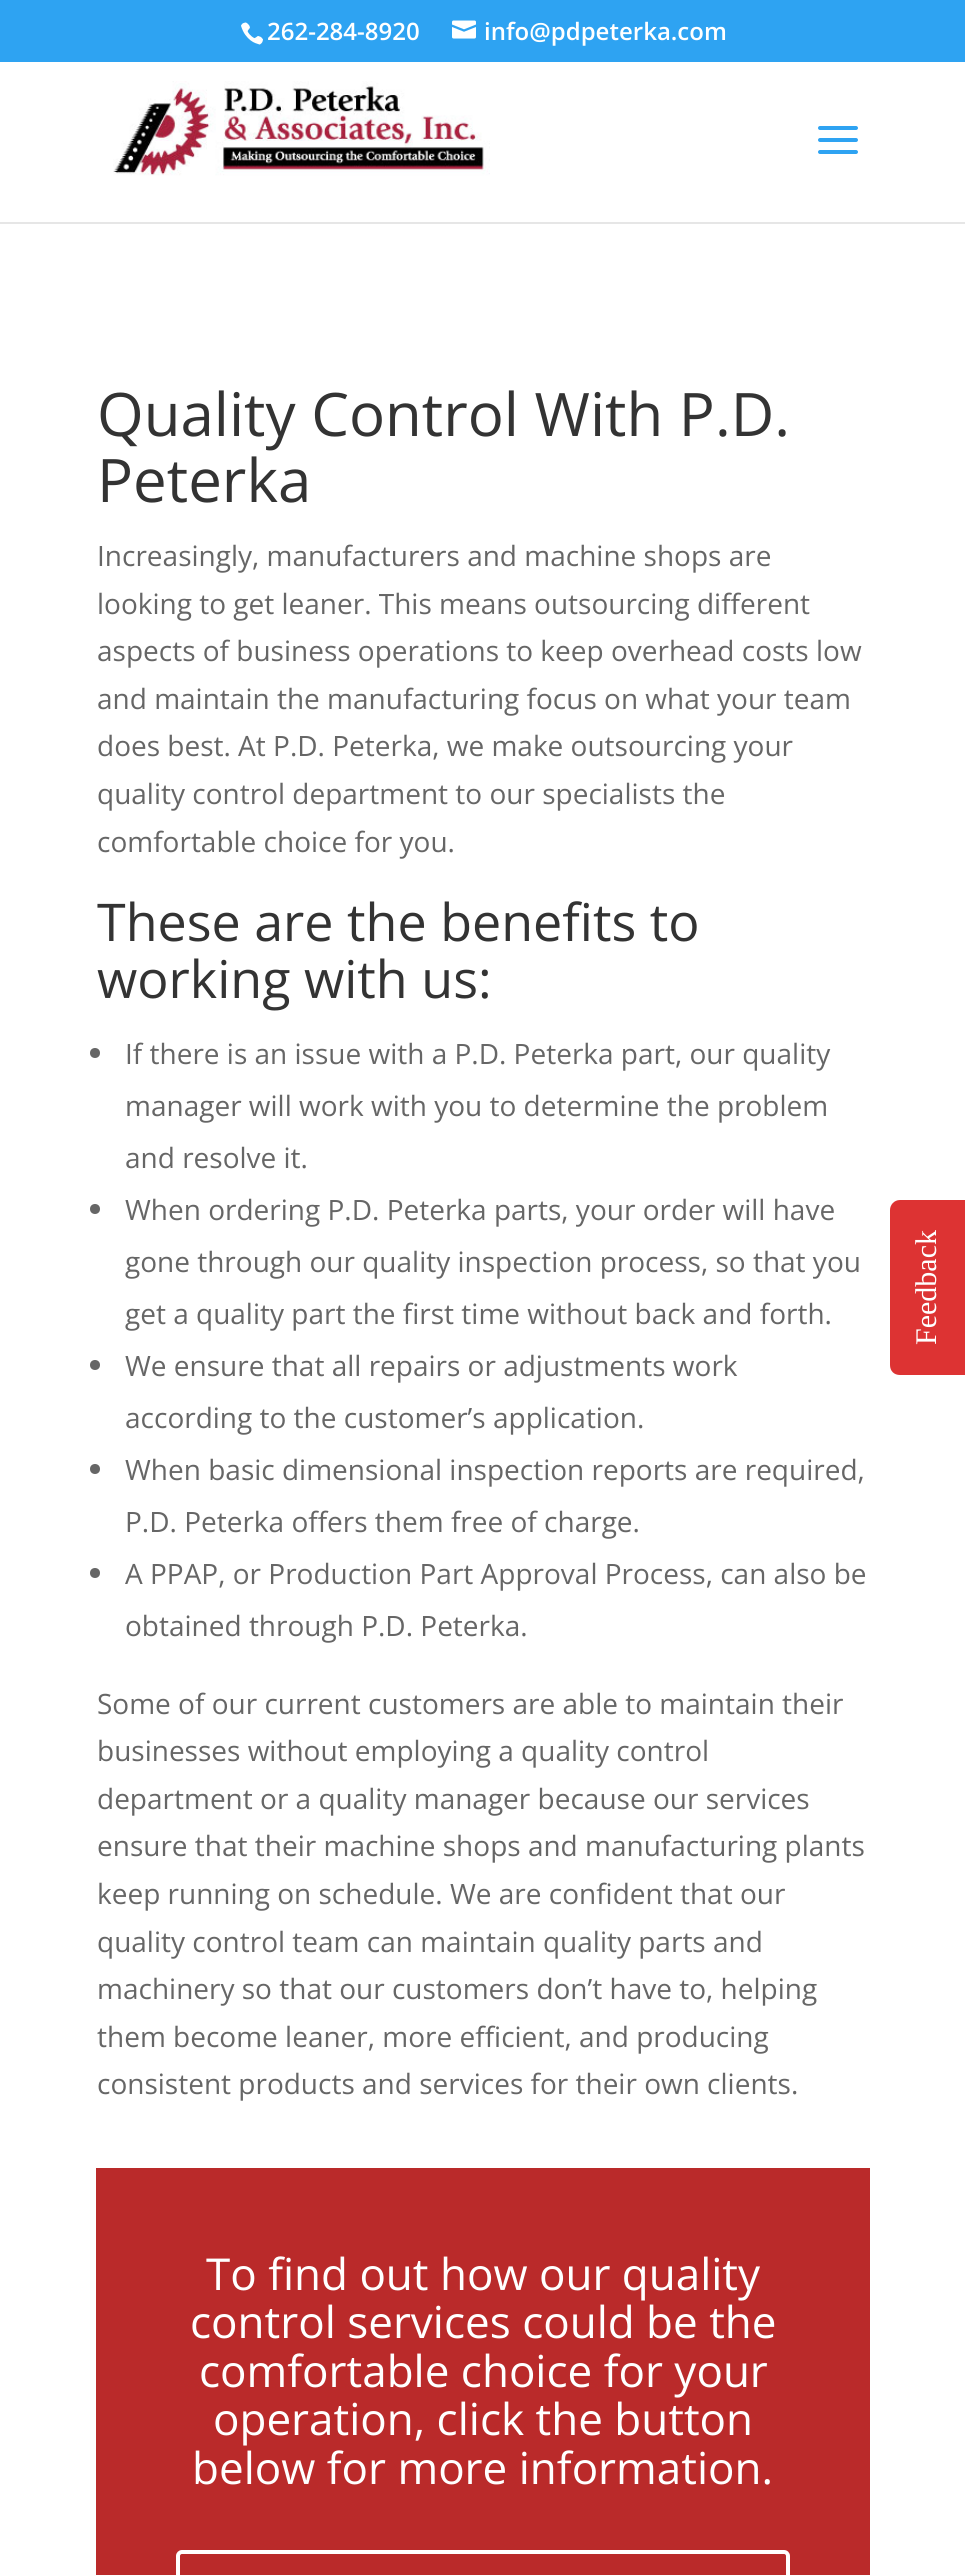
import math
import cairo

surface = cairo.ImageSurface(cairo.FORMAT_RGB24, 965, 2575)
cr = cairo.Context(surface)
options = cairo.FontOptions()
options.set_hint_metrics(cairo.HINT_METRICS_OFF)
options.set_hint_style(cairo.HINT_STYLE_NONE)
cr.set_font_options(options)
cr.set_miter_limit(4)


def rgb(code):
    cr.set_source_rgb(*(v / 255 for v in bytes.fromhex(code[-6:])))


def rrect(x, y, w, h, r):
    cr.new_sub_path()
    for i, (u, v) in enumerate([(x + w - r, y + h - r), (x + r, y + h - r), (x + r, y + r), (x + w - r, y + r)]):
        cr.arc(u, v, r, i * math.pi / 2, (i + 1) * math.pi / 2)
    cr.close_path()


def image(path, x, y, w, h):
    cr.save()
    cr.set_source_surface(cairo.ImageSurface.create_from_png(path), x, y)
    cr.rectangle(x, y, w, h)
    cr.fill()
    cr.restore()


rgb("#ffffff")
cr.paint()
rgb("#2ea3f2")
cr.rectangle(0, 0, 965, 62)
cr.fill()
image("img/1.png", 241, 22, 22, 23)
image("img/2.png", 452, 20, 24, 19)
rgb("#e6e6e6")
cr.rectangle(0, 222, 965, 2)
cr.fill()
image("img/3.png", 113, 81, 377, 95)
image("img/4.png", 818, 126, 40, 28)
rgb("#666666")
cr.arc(95, 1053, 5, 0, 2 * math.pi)
cr.fill()
cr.arc(95, 1209, 5, 0, 2 * math.pi)
cr.fill()
cr.arc(95, 1365, 5, 0, 2 * math.pi)
cr.fill()
cr.arc(95, 1469, 5, 0, 2 * math.pi)
cr.fill()
cr.arc(95, 1573, 5, 0, 2 * math.pi)
cr.fill()
rgb("#ba2a2a")
cr.rectangle(96, 2168, 774, 407)
cr.fill()
rrect(178, 2552, 610, 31, 4)
rgb("#ffffff")
cr.set_line_width(4)
cr.stroke()
rgb("#dd3333")
cr.new_path()
cr.move_to(890, 1365)
cr.line_to(890, 1210)
cr.curve_to(890, 1205, 894, 1200, 900, 1200)
cr.line_to(965, 1200)
cr.line_to(965, 1375)
cr.line_to(900, 1375)
cr.curve_to(894, 1375, 890, 1371, 890, 1365)
cr.close_path()
cr.fill()
cr.select_font_face("Open Sans SemiBold")
cr.set_font_size(24)
rgb("#ffffff")
cr.move_to(267, 40)
cr.show_text("262-284-8920")
cr.move_to(484, 40)
cr.show_text("info@pdpeterka.com")
cr.select_font_face("Open Sans")
cr.set_font_size(60)
rgb("#333333")
cr.move_to(97, 436)
cr.show_text("Quality Control With P.D.")
cr.move_to(97, 502)
cr.show_text("Peterka")
cr.set_font_size(28)
rgb("#666666")
for x, y, s in [
    (97, 566, "Increasingly, manufacturers and machine shops are"),
    (97, 614, "looking to get leaner. This means outsourcing different"),
    (97, 661, "aspects of business operations to keep overhead costs low"),
    (97, 709, "and maintain the manufacturing focus on what your team"),
    (97, 756, "does best. At P.D. Peterka, we make outsourcing your"),
    (97, 804, "quality control department to our specialists the"),
    (97, 852, "comfortable choice for you."),
]:
    cr.move_to(x, y)
    cr.show_text(s)
cr.set_font_size(52)
rgb("#333333")
cr.move_to(97, 941)
cr.show_text("These are the benefits to")
cr.move_to(97, 998)
cr.show_text("working with us:")
cr.set_font_size(28)
rgb("#666666")
for x, y, s in [
    (125, 1064, "If there is an issue with a P.D. Peterka part, our quality"),
    (125, 1116, "manager will work with you to determine the problem"),
    (125, 1168, "and resolve it."),
    (125, 1220, "When ordering P.D. Peterka parts, your order will have"),
    (125, 1272, "gone through our quality inspection process, so that you"),
    (125, 1324, "get a quality part the first time without back and forth."),
    (125, 1376, "We ensure that all repairs or adjustments work"),
    (125, 1428, "according to the customer’s application."),
    (125, 1480, "When basic dimensional inspection reports are required,"),
    (125, 1532, "P.D. Peterka offers them free of charge."),
    (125, 1584, "A PPAP, or Production Part Approval Process, can also be"),
    (125, 1636, "obtained through P.D. Peterka."),
    (97, 1714, "Some of our current customers are able to maintain their"),
    (97, 1761, "businesses without employing a quality control"),
    (97, 1809, "department or a quality manager because our services"),
    (97, 1856, "ensure that their machine shops and manufacturing plants"),
    (97, 1904, "keep running on schedule. We are confident that our"),
    (97, 1952, "quality control team can maintain quality parts and"),
    (97, 1999, "machinery so that our customers don’t have to, helping"),
    (97, 2047, "them become leaner, more efficient, and producing"),
    (97, 2094, "consistent products and services for their own clients."),
]:
    cr.move_to(x, y)
    cr.show_text(s)
cr.set_font_size(44)
rgb("#ffffff")
for x, y, s in [
    (206, 2290, "To find out how our quality"),
    (190, 2338, "control services could be the"),
    (199, 2387, "comfortable choice for your"),
    (213, 2435, "operation, click the button"),
    (192, 2484, "below for more information."),
]:
    cr.move_to(x, y)
    cr.show_text(s)
cr.select_font_face("Liberation Serif")
cr.set_font_size(30)
cr.save()
cr.translate(936, 1345)
cr.rotate(-90 * math.pi / 180)
cr.move_to(0, 0)
cr.show_text("Feedback")
cr.restore()
surface.write_to_png("page.png")
